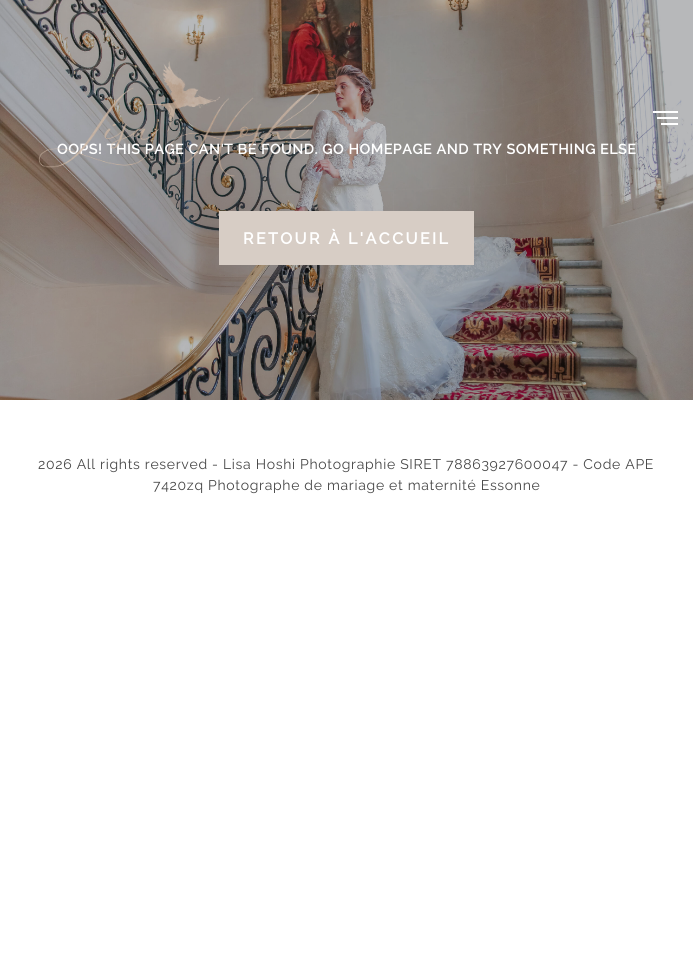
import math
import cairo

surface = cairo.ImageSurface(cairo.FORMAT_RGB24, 693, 970)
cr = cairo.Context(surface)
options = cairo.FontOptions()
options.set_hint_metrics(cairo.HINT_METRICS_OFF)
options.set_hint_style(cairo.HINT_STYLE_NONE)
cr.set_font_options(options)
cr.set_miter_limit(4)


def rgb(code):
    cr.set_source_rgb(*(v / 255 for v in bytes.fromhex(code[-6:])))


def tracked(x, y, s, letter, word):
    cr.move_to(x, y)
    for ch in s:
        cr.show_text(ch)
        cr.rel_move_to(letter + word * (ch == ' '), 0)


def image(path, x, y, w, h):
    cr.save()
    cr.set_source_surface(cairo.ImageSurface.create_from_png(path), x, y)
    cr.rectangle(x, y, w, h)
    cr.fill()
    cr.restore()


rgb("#ffffff")
cr.paint()
image("img/2.png", 0, 0, 693, 400)
for x, y, w, h, color in [
    (653, 111, 25, 2, "#ffffff"),
    (657, 117, 21, 2, "#ffffff"),
    (661, 123, 17, 2, "#ffffff"),
    (219, 211, 255, 54, "#d7cdc5"),
]:
    rgb(color)
    cr.rectangle(x, y, w, h)
    cr.fill()
cr.select_font_face("Raleway", cairo.FONT_SLANT_NORMAL, cairo.FONT_WEIGHT_BOLD)
cr.set_font_size(14)
rgb("#ffffff")
tracked(57, 154, "OOPS! THIS PAGE CAN'T BE FOUND. GO HOMEPAGE AND TRY SOMETHING ELSE", 0.7, 0)
image("img/1.png", 38, 61, 282, 116)
cr.set_font_size(16)
tracked(243, 244, "RETOUR À L'ACCUEIL", 2.4, 0)
cr.select_font_face("Raleway")
cr.set_font_size(14)
rgb("#474747")
tracked(38, 469, "2026 All rights reserved - Lisa Hoshi Photographie SIRET 78863927600047 - Code APE", 0.7, 0)
tracked(153, 490, "7420zq Photographe de mariage et maternité Essonne", 0.7, 0)
surface.write_to_png("page.png")
